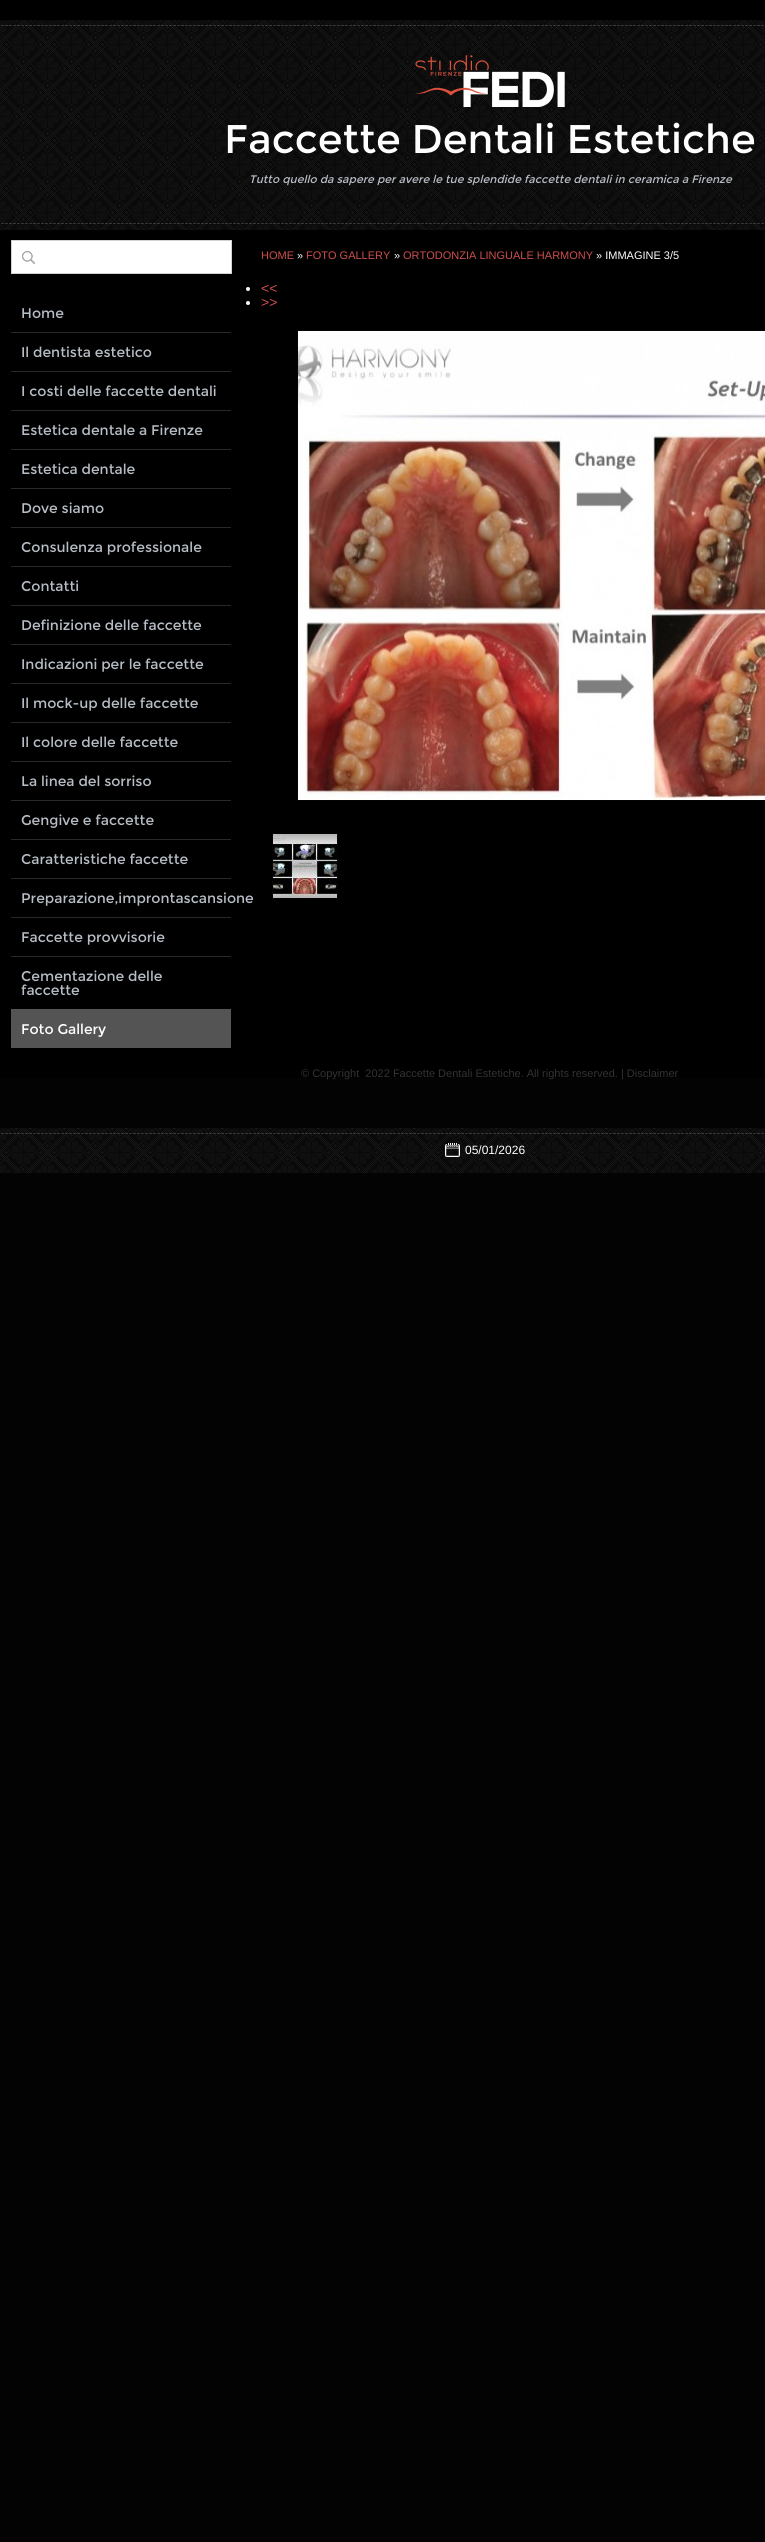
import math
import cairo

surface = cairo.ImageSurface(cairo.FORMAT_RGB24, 765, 2542)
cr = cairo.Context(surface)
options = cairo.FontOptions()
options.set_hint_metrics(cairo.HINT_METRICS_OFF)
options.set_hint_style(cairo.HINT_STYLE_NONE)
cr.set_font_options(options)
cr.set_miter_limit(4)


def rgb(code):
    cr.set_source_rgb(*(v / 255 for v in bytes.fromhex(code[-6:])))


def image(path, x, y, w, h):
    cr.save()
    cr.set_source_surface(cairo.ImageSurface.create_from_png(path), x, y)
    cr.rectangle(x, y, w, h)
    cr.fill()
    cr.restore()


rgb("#030303")
cr.paint()
rgb("#000000")
cr.rectangle(0, 0, 765, 1078)
cr.fill()
image("img/1.png", 0, 20, 765, 210)
image("img/2.png", 415, 55, 150, 52)
rgb("#ffffff")
cr.arc(248, 289, 2, 0, 2 * math.pi)
cr.fill()
cr.arc(248, 303, 2, 0, 2 * math.pi)
cr.fill()
cr.rectangle(297.5, 330.5, 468, 470)
rgb("#050505")
cr.set_line_width(1)
cr.stroke()
image("img/3.png", 298, 331, 467, 469)
cr.rectangle(272.5, 833.5, 65, 65)
cr.stroke()
image("img/4.png", 273, 834, 64, 64)
rgb("#ffffff")
cr.rectangle(11.5, 240.5, 220, 33)
cr.fill_preserve()
rgb("#d4d1cf")
cr.stroke()
image("img/5.png", 22, 251, 13, 13)
for x, y, w, h, color in [
    (11, 332, 220, 1, "#292929"),
    (11, 371, 220, 1, "#292929"),
    (11, 410, 220, 1, "#292929"),
    (11, 449, 220, 1, "#292929"),
    (11, 488, 220, 1, "#292929"),
    (11, 527, 220, 1, "#292929"),
    (11, 566, 220, 1, "#292929"),
    (11, 605, 220, 1, "#292929"),
    (11, 644, 220, 1, "#292929"),
    (11, 683, 220, 1, "#292929"),
    (11, 722, 220, 1, "#292929"),
    (11, 761, 220, 1, "#292929"),
    (11, 800, 220, 1, "#292929"),
    (11, 839, 220, 1, "#292929"),
    (11, 878, 220, 1, "#292929"),
    (11, 917, 220, 1, "#292929"),
    (11, 956, 220, 1, "#292929"),
    (11, 1009, 220, 39, "#545454"),
    (0, 1128, 765, 45, "#000000"),
]:
    rgb(color)
    cr.rectangle(x, y, w, h)
    cr.fill()
image("img/7.png", 0, 1128, 765, 45)
image("img/6.png", 445, 1143, 15, 14)
cr.select_font_face("Montserrat")
cr.set_font_size(40)
rgb("#ffffff")
cr.move_to(224, 153)
cr.show_text("Faccette Dentali Estetiche")
cr.select_font_face("Montserrat", cairo.FONT_SLANT_ITALIC)
cr.set_font_size(11)
rgb("#b7bdc5")
cr.move_to(249, 183)
cr.show_text("Tutto quello da sapere per avere le tue splendide faccette dentali in ceramica a Firenze")
cr.select_font_face("Liberation Sans")
rgb("#cc4f4f")
cr.move_to(261, 259)
cr.show_text("HOME")
rgb("#ffffff")
cr.move_to(297, 259)
cr.show_text("»")
rgb("#cc4f4f")
cr.move_to(306, 259)
cr.show_text("FOTO GALLERY")
rgb("#ffffff")
cr.move_to(394, 259)
cr.show_text("»")
rgb("#cc4f4f")
cr.move_to(403, 259)
cr.show_text("ORTODONZIA LINGUALE HARMONY")
rgb("#ffffff")
cr.move_to(596, 259)
cr.show_text("» IMMAGINE 3/5")
cr.set_font_size(14)
rgb("#cc4f4f")
cr.move_to(261, 293)
cr.show_text("<<")
cr.move_to(261, 307)
cr.show_text(">>")
cr.select_font_face("Montserrat")
rgb("#b7bdc5")
for x, y, s in [
    (21, 318, "Home"),
    (21, 357, "Il dentista estetico"),
    (21, 396, "I costi delle faccette dentali"),
    (21, 435, "Estetica dentale a Firenze"),
    (21, 474, "Estetica dentale"),
    (21, 513, "Dove siamo"),
    (21, 552, "Consulenza professionale"),
    (21, 591, "Contatti"),
    (21, 630, "Definizione delle faccette"),
    (21, 669, "Indicazioni per le faccette"),
    (21, 708, "Il mock-up delle faccette"),
    (21, 747, "Il colore delle faccette"),
    (21, 786, "La linea del sorriso"),
    (21, 825, "Gengive e faccette"),
    (21, 864, "Caratteristiche faccette"),
    (21, 903, "Preparazione,improntascansione"),
    (21, 942, "Faccette provvisorie"),
    (21, 981, "Cementazione delle"),
    (21, 995, "faccette"),
]:
    cr.move_to(x, y)
    cr.show_text(s)
rgb("#ffffff")
cr.move_to(21, 1034)
cr.show_text("Foto Gallery")
cr.select_font_face("Liberation Sans")
cr.set_font_size(11)
rgb("#333333")
cr.move_to(301, 1077)
cr.show_text("© Copyright  2022 Faccette Dentali Estetiche. All rights reserved. | Disclaimer")
cr.set_font_size(12)
rgb("#ffffff")
cr.move_to(465, 1154)
cr.show_text("05/01/2026")
surface.write_to_png("page.png")
